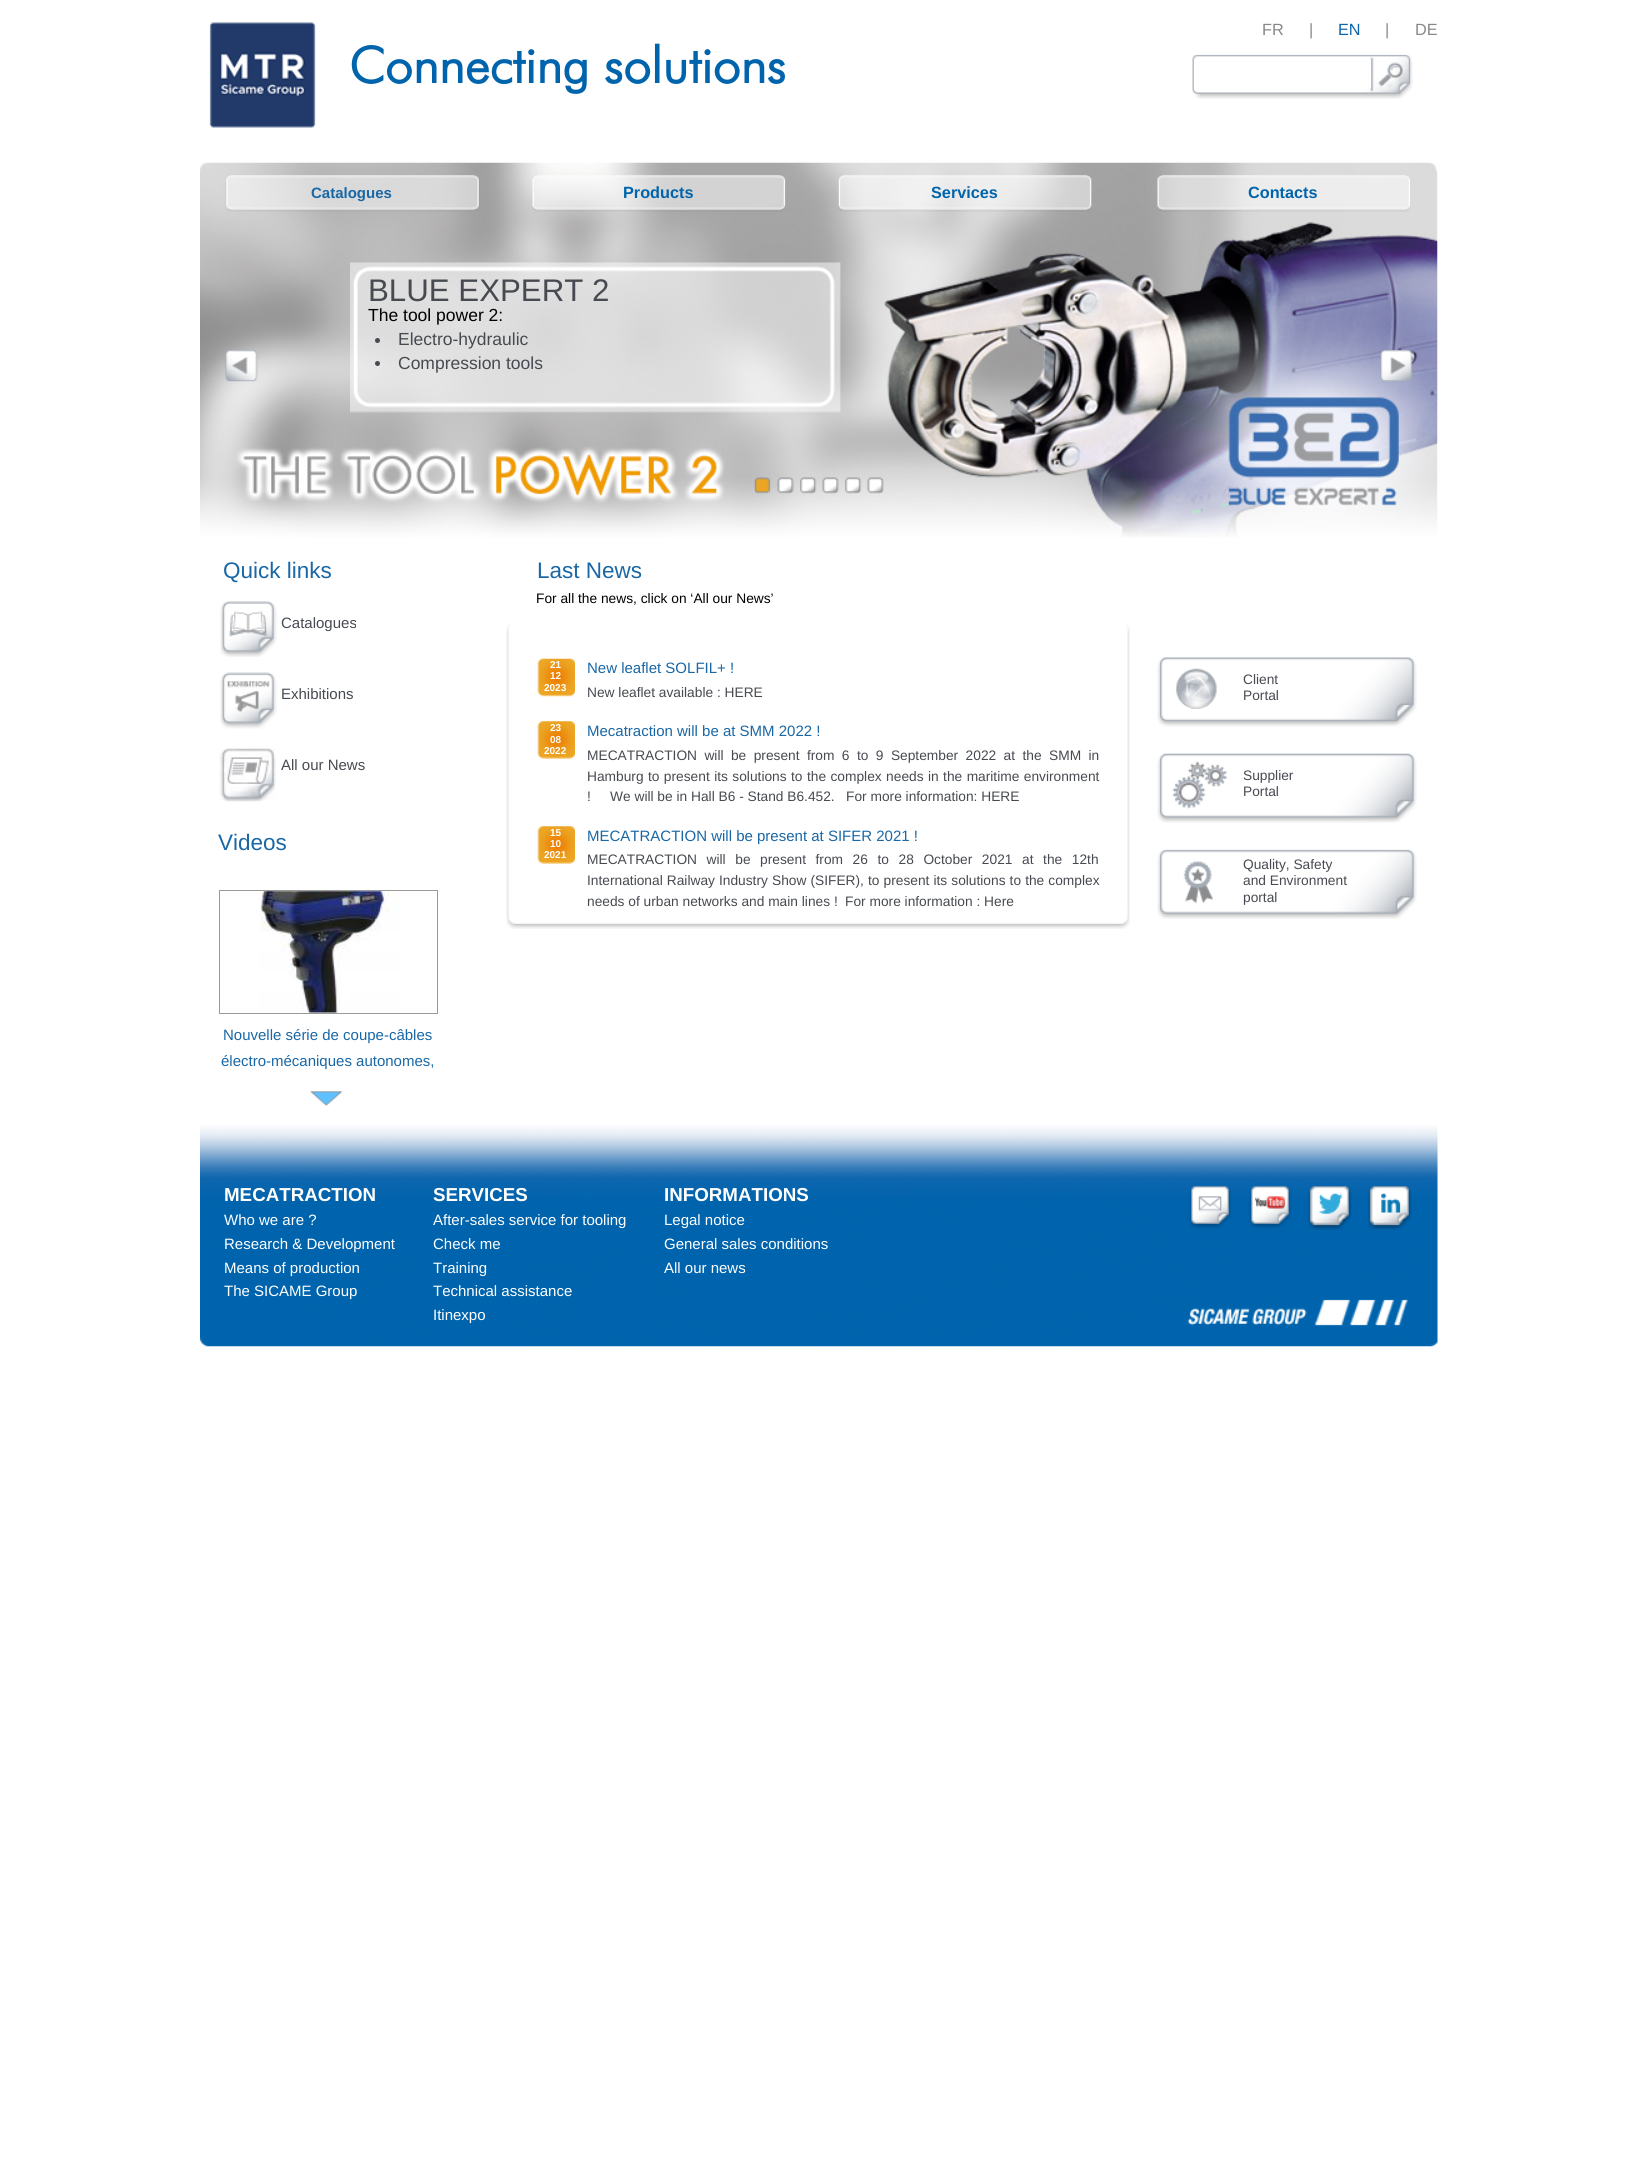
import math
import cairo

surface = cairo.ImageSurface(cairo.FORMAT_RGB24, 1636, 2182)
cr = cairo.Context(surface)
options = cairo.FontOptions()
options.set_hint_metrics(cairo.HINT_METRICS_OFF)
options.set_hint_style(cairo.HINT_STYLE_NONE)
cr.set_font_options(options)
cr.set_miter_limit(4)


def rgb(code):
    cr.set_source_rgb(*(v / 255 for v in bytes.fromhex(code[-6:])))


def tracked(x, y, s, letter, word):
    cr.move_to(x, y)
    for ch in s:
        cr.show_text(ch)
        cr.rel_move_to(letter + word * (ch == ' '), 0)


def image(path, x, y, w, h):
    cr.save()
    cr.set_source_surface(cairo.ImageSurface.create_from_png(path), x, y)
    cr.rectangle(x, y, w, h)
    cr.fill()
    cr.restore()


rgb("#ffffff")
cr.paint()
image("img/1.png", 209, 22, 107, 106)
image("img/2.png", 1192, 54, 221, 45)
rgb("#ffffff")
cr.rectangle(1369, 60, 2, 28)
cr.fill()
image("img/8.png", 200, 162, 1238, 376)
image("img/3.png", 225, 175, 255, 37)
image("img/4.png", 532, 175, 254, 37)
image("img/5.png", 838, 175, 254, 37)
image("img/6.png", 1157, 175, 253, 37)
image("img/7.png", 225, 350, 33, 32)
image("img/9.png", 350, 262, 491, 151)
rgb("#474a50")
cr.arc(377.5, 340.5, 2.5, 0, 2 * math.pi)
cr.fill()
cr.arc(377.5, 363.5, 2.5, 0, 2 * math.pi)
cr.fill()
image("img/10.png", 1380, 350, 33, 32)
image("img/11.png", 754, 477, 17, 17)
image("img/12.png", 777, 477, 17, 17)
image("img/13.png", 800, 477, 17, 17)
image("img/14.png", 822, 477, 17, 17)
image("img/15.png", 845, 477, 17, 17)
image("img/16.png", 867, 477, 17, 17)
image("img/17.png", 220, 601, 57, 56)
image("img/18.png", 220, 672, 57, 57)
image("img/19.png", 219, 748, 57, 54)
cr.rectangle(219.5, 890.5, 218, 123)
rgb("#999999")
cr.set_line_width(1)
cr.stroke()
image("img/20.png", 259, 891, 140, 122)
image("img/21.png", 310, 1091, 33, 15)
image("img/22.png", 506, 624, 624, 16)
image("img/23.png", 506, 640, 624, 272)
image("img/24.png", 537, 658, 38, 39)
image("img/25.png", 537, 721, 38, 38)
image("img/25.png", 537, 826, 38, 38)
image("img/26.png", 506, 911, 624, 18)
image("img/27.png", 1157, 657, 260, 70)
image("img/28.png", 1157, 753, 260, 70)
image("img/29.png", 1157, 849, 260, 70)
image("img/30.png", 200, 1125, 1238, 222)
image("img/31.png", 1188, 1186, 44, 43)
image("img/32.png", 1248, 1186, 44, 43)
image("img/33.png", 1307, 1185, 45, 45)
image("img/34.png", 1367, 1185, 45, 45)
cr.select_font_face("Liberation Sans")
cr.set_font_size(16.25)
rgb("#87888a")
cr.move_to(1262, 35)
cr.show_text("FR")
cr.move_to(1309, 35)
cr.show_text("|")
rgb("#0d64aa")
cr.move_to(1338, 35)
cr.show_text("EN")
rgb("#87888a")
cr.move_to(1385, 35)
cr.show_text("|")
cr.move_to(1415, 35)
cr.show_text("DE")
cr.select_font_face("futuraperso", cairo.FONT_SLANT_NORMAL, cairo.FONT_WEIGHT_BOLD)
cr.set_font_size(50)
rgb("#0064ad")
cr.move_to(349, 83)
cr.show_text("Connecting solutions")
cr.select_font_face("Liberation Sans", cairo.FONT_SLANT_NORMAL, cairo.FONT_WEIGHT_BOLD)
cr.set_font_size(15)
rgb("#1967a5")
cr.move_to(311, 198)
cr.show_text("Catalogues")
cr.set_font_size(16.25)
rgb("#0064ad")
for x, y, s in [
    (623, 198, "Products"),
    (931, 198, "Services"),
    (1248, 198, "Contacts"),
]:
    cr.move_to(x, y)
    cr.show_text(s)
cr.select_font_face("Liberation Sans")
cr.set_font_size(31.25)
rgb("#474a50")
cr.move_to(368, 301)
cr.show_text("BLUE EXPERT 2")
cr.set_font_size(17.5)
rgb("#000000")
cr.move_to(368, 321)
cr.show_text("The tool power 2:")
rgb("#474a50")
cr.move_to(398, 345)
cr.show_text("Electro-hydraulic")
cr.move_to(398, 369)
cr.show_text("Compression tools")
cr.set_font_size(22.5)
rgb("#1967a5")
cr.move_to(223, 578)
cr.show_text("Quick links")
cr.set_font_size(15)
rgb("#474a50")
for x, y, s in [
    (281, 628, "Catalogues"),
    (281, 699, "Exhibitions"),
    (281, 770, "All our News"),
]:
    cr.move_to(x, y)
    cr.show_text(s)
cr.set_font_size(22.5)
rgb("#1967a5")
cr.move_to(218, 850)
cr.show_text("Videos")
cr.set_font_size(15)
cr.move_to(223, 1040)
cr.show_text("Nouvelle série de coupe-câbles")
cr.move_to(221, 1066)
cr.show_text("électro-mécaniques autonomes,")
cr.set_font_size(22.5)
cr.move_to(537, 578)
cr.show_text("Last News")
cr.set_font_size(13.75)
rgb("#000000")
cr.move_to(536, 603)
cr.show_text("For all the news, click on ‘All our News’")
cr.select_font_face("Liberation Sans", cairo.FONT_SLANT_NORMAL, cairo.FONT_WEIGHT_BOLD)
cr.set_font_size(10)
rgb("#ffffff")
for x, y, s in [
    (550, 668, "21"),
    (550, 679, "12"),
    (544, 691, "2023"),
]:
    cr.move_to(x, y)
    cr.show_text(s)
cr.select_font_face("Liberation Sans")
cr.set_font_size(15)
rgb("#1967a5")
cr.move_to(587, 673)
cr.show_text("New leaflet SOLFIL+ !")
cr.set_font_size(13.75)
rgb("#474a50")
cr.move_to(587, 697)
cr.show_text("New leaflet available : HERE")
cr.select_font_face("Liberation Sans", cairo.FONT_SLANT_NORMAL, cairo.FONT_WEIGHT_BOLD)
cr.set_font_size(10)
rgb("#ffffff")
for x, y, s in [
    (550, 731, "23"),
    (550, 743, "08"),
    (544, 754, "2022"),
]:
    cr.move_to(x, y)
    cr.show_text(s)
cr.select_font_face("Liberation Sans")
cr.set_font_size(15)
rgb("#1967a5")
cr.move_to(587, 736)
cr.show_text("Mecatraction will be at SMM 2022 !")
cr.set_font_size(13.75)
rgb("#474a50")
tracked(587, 760, "MECATRACTION will be present from 6 to 9 September 2022 at the SMM in", 0, 3.6)
tracked(587, 781, "Hamburg to present its solutions to the complex needs in the maritime environment", 0, 0.6)
for x, y, s in [
    (587, 801, "!"),
    (610, 801, "We will be in Hall B6 - Stand B6.452."),
    (846, 801, "For more information: HERE"),
]:
    cr.move_to(x, y)
    cr.show_text(s)
cr.select_font_face("Liberation Sans", cairo.FONT_SLANT_NORMAL, cairo.FONT_WEIGHT_BOLD)
cr.set_font_size(10)
rgb("#ffffff")
for x, y, s in [
    (550, 836, "15"),
    (550, 847, "10"),
    (544, 858, "2021"),
]:
    cr.move_to(x, y)
    cr.show_text(s)
cr.select_font_face("Liberation Sans")
cr.set_font_size(15)
rgb("#1967a5")
cr.move_to(587, 841)
cr.show_text("MECATRACTION will be present at SIFER 2021 !")
cr.set_font_size(13.75)
rgb("#474a50")
tracked(587, 864, "MECATRACTION will be present from 26 to 28 October 2021 at the 12th", 0, 5.75)
tracked(587, 885, "International Railway Industry Show (SIFER), to present its solutions to the complex", 0, 0.25)
for x, y, s in [
    (587, 906, "needs of urban networks and main lines !"),
    (845, 906, "For more information : Here"),
    (1243, 684, "Client"),
    (1243, 700, "Portal"),
    (1243, 780, "Supplier"),
    (1243, 796, "Portal"),
    (1243, 869, "Quality, Safety"),
    (1243, 885, "and Environment"),
    (1243, 902, "portal"),
]:
    cr.move_to(x, y)
    cr.show_text(s)
cr.select_font_face("Liberation Sans", cairo.FONT_SLANT_NORMAL, cairo.FONT_WEIGHT_BOLD)
cr.set_font_size(18.75)
rgb("#ffffff")
cr.move_to(224, 1201)
cr.show_text("MECATRACTION")
cr.select_font_face("Liberation Sans")
cr.set_font_size(15)
for x, y, s in [
    (224, 1225, "Who we are ?"),
    (224, 1249, "Research & Development"),
    (224, 1273, "Means of production"),
    (224, 1296, "The SICAME Group"),
]:
    cr.move_to(x, y)
    cr.show_text(s)
cr.select_font_face("Liberation Sans", cairo.FONT_SLANT_NORMAL, cairo.FONT_WEIGHT_BOLD)
cr.set_font_size(18.75)
cr.move_to(433, 1201)
cr.show_text("SERVICES")
cr.select_font_face("Liberation Sans")
cr.set_font_size(15)
for x, y, s in [
    (433, 1225, "After-sales service for tooling"),
    (433, 1249, "Check me"),
    (433, 1273, "Training"),
    (433, 1296, "Technical assistance"),
    (433, 1320, "Itinexpo"),
]:
    cr.move_to(x, y)
    cr.show_text(s)
cr.select_font_face("Liberation Sans", cairo.FONT_SLANT_NORMAL, cairo.FONT_WEIGHT_BOLD)
cr.set_font_size(18.75)
cr.move_to(664, 1201)
cr.show_text("INFORMATIONS")
cr.select_font_face("Liberation Sans")
cr.set_font_size(15)
for x, y, s in [
    (664, 1225, "Legal notice"),
    (664, 1249, "General sales conditions"),
    (664, 1273, "All our news"),
]:
    cr.move_to(x, y)
    cr.show_text(s)
surface.write_to_png("page.png")
